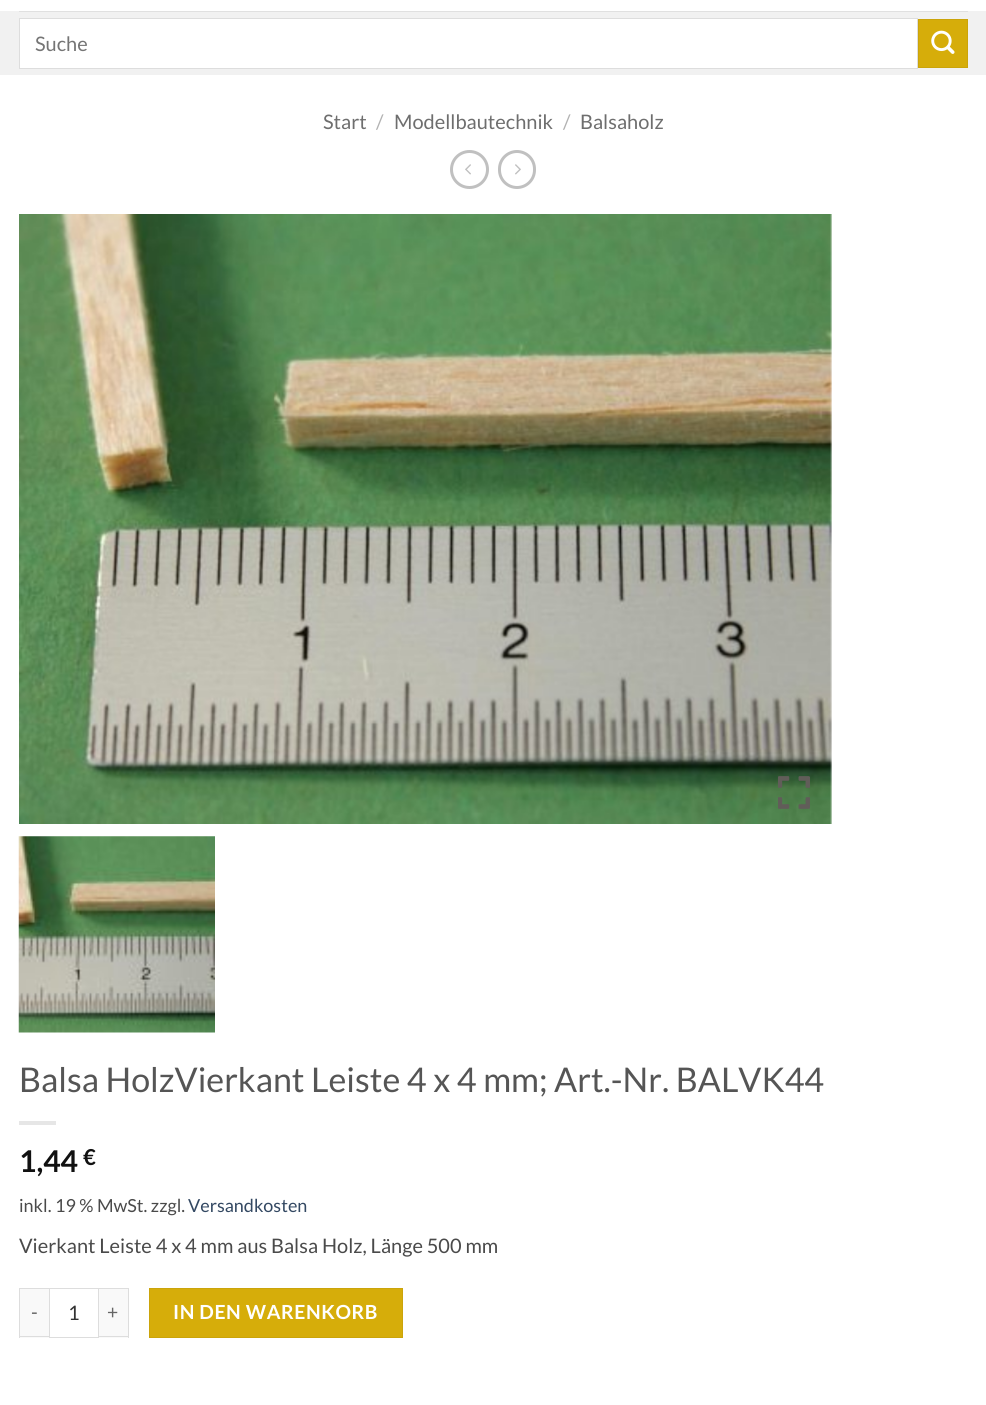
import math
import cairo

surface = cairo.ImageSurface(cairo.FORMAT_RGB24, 986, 1405)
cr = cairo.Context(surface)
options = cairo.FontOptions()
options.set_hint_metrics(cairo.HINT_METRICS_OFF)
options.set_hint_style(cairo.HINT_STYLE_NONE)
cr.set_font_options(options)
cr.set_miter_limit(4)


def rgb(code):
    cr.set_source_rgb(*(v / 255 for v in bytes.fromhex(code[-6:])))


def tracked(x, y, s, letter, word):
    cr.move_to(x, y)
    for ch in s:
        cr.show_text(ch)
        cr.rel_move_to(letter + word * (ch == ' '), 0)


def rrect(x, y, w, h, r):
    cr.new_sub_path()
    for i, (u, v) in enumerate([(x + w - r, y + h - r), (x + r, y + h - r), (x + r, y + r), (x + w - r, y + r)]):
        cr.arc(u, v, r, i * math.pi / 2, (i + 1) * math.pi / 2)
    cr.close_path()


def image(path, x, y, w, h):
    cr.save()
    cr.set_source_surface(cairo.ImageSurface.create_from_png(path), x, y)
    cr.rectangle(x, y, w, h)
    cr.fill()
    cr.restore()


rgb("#ffffff")
cr.paint()
rgb("#f1f1f1")
cr.rectangle(0, 11, 986, 64)
cr.fill()
rgb("#e0e0e0")
cr.rectangle(19, 11, 949, 1)
cr.fill()
rgb("#ffffff")
cr.rectangle(19.5, 18.5, 898, 50)
cr.fill_preserve()
rgb("#dddddd")
cr.set_line_width(1)
cr.stroke()
rgb("#d6ad0a")
cr.rectangle(918.5, 19.5, 49, 48)
cr.fill_preserve()
rgb("#cba40a")
cr.stroke()
image("img/1.png", 931, 30, 24, 24)
cr.arc(469.5, 169.5, 18, 0, 2 * math.pi)
rgb("#c0c0c0")
cr.set_line_width(3)
cr.stroke()
image("img/2.png", 465, 164, 6, 11)
rrect(499.5, 151.5, 35, 36, 17.5)
cr.stroke()
image("img/3.png", 515, 164, 6, 11)
image("img/4.png", 19, 214, 813, 610)
image("img/5.png", 778, 776, 32, 33)
image("img/6.png", 18, 836, 197, 197)
for x, y, w, h, color in [
    (19, 1121, 37, 4, "#e6e6e6"),
    (20, 1289, 29, 49, "#f9f9f9"),
    (19, 1288, 30, 1, "#dddddd"),
    (19, 1336, 30, 1, "#dddddd"),
    (19, 1288, 1, 50, "#dddddd"),
]:
    rgb(color)
    cr.rectangle(x, y, w, h)
    cr.fill()
cr.rectangle(49.5, 1288.5, 49, 49)
cr.set_line_width(1)
cr.stroke()
for x, y, w, h, color in [
    (99, 1289, 29, 49, "#f9f9f9"),
    (99, 1288, 30, 1, "#dddddd"),
    (128, 1288, 1, 50, "#dddddd"),
    (99, 1336, 30, 1, "#dddddd"),
]:
    rgb(color)
    cr.rectangle(x, y, w, h)
    cr.fill()
rgb("#d6ad0a")
cr.rectangle(149.5, 1288.5, 253, 49)
cr.fill_preserve()
rgb("#cba40a")
cr.stroke()
cr.select_font_face("Lato")
cr.set_font_size(20)
rgb("#757575")
cr.move_to(35, 51)
cr.show_text("Suche")
rgb("#6e6e6e")
cr.move_to(323, 129)
cr.show_text("Start")
rgb("#b2b2b2")
cr.move_to(376, 129)
cr.show_text("/")
rgb("#6e6e6e")
cr.move_to(394, 129)
cr.show_text("Modellbautechnik")
rgb("#b2b2b2")
cr.move_to(563, 129)
cr.show_text("/")
rgb("#6e6e6e")
cr.move_to(580, 129)
cr.show_text("Balsaholz")
cr.set_font_size(34)
rgb("#555555")
cr.move_to(19, 1092)
cr.show_text("Balsa HolzVierkant Leiste 4 x 4 mm; Art.-Nr. BALVK44")
cr.select_font_face("Lato", cairo.FONT_SLANT_NORMAL, cairo.FONT_WEIGHT_BOLD)
cr.set_font_size(30)
rgb("#111111")
cr.move_to(19, 1172)
cr.show_text("1,44")
cr.set_font_size(22)
cr.move_to(83, 1165)
cr.show_text("€")
cr.select_font_face("Lato")
cr.set_font_size(18)
rgb("#4a4a4a")
cr.move_to(19, 1212)
cr.show_text("inkl. 19 % MwSt. zzgl.")
rgb("#334862")
cr.move_to(188, 1212)
cr.show_text("Versandkosten")
cr.set_font_size(20)
rgb("#4a4a4a")
cr.move_to(19, 1253)
cr.show_text("Vierkant Leiste 4 x 4 mm aus Balsa Holz, Länge 500 mm")
cr.set_font_size(19.4)
rgb("#666666")
tracked(31, 1319, "-", 0.6, 0)
cr.set_font_size(20)
rgb("#333333")
cr.move_to(68, 1320)
cr.show_text("1")
cr.set_font_size(19.4)
rgb("#666666")
tracked(107, 1319, "+", 0.6, 0)
cr.select_font_face("Lato", cairo.FONT_SLANT_NORMAL, cairo.FONT_WEIGHT_BOLD)
rgb("#ffffff")
tracked(173, 1319, "IN DEN WARENKORB", 0.6, 0)
surface.write_to_png("page.png")
